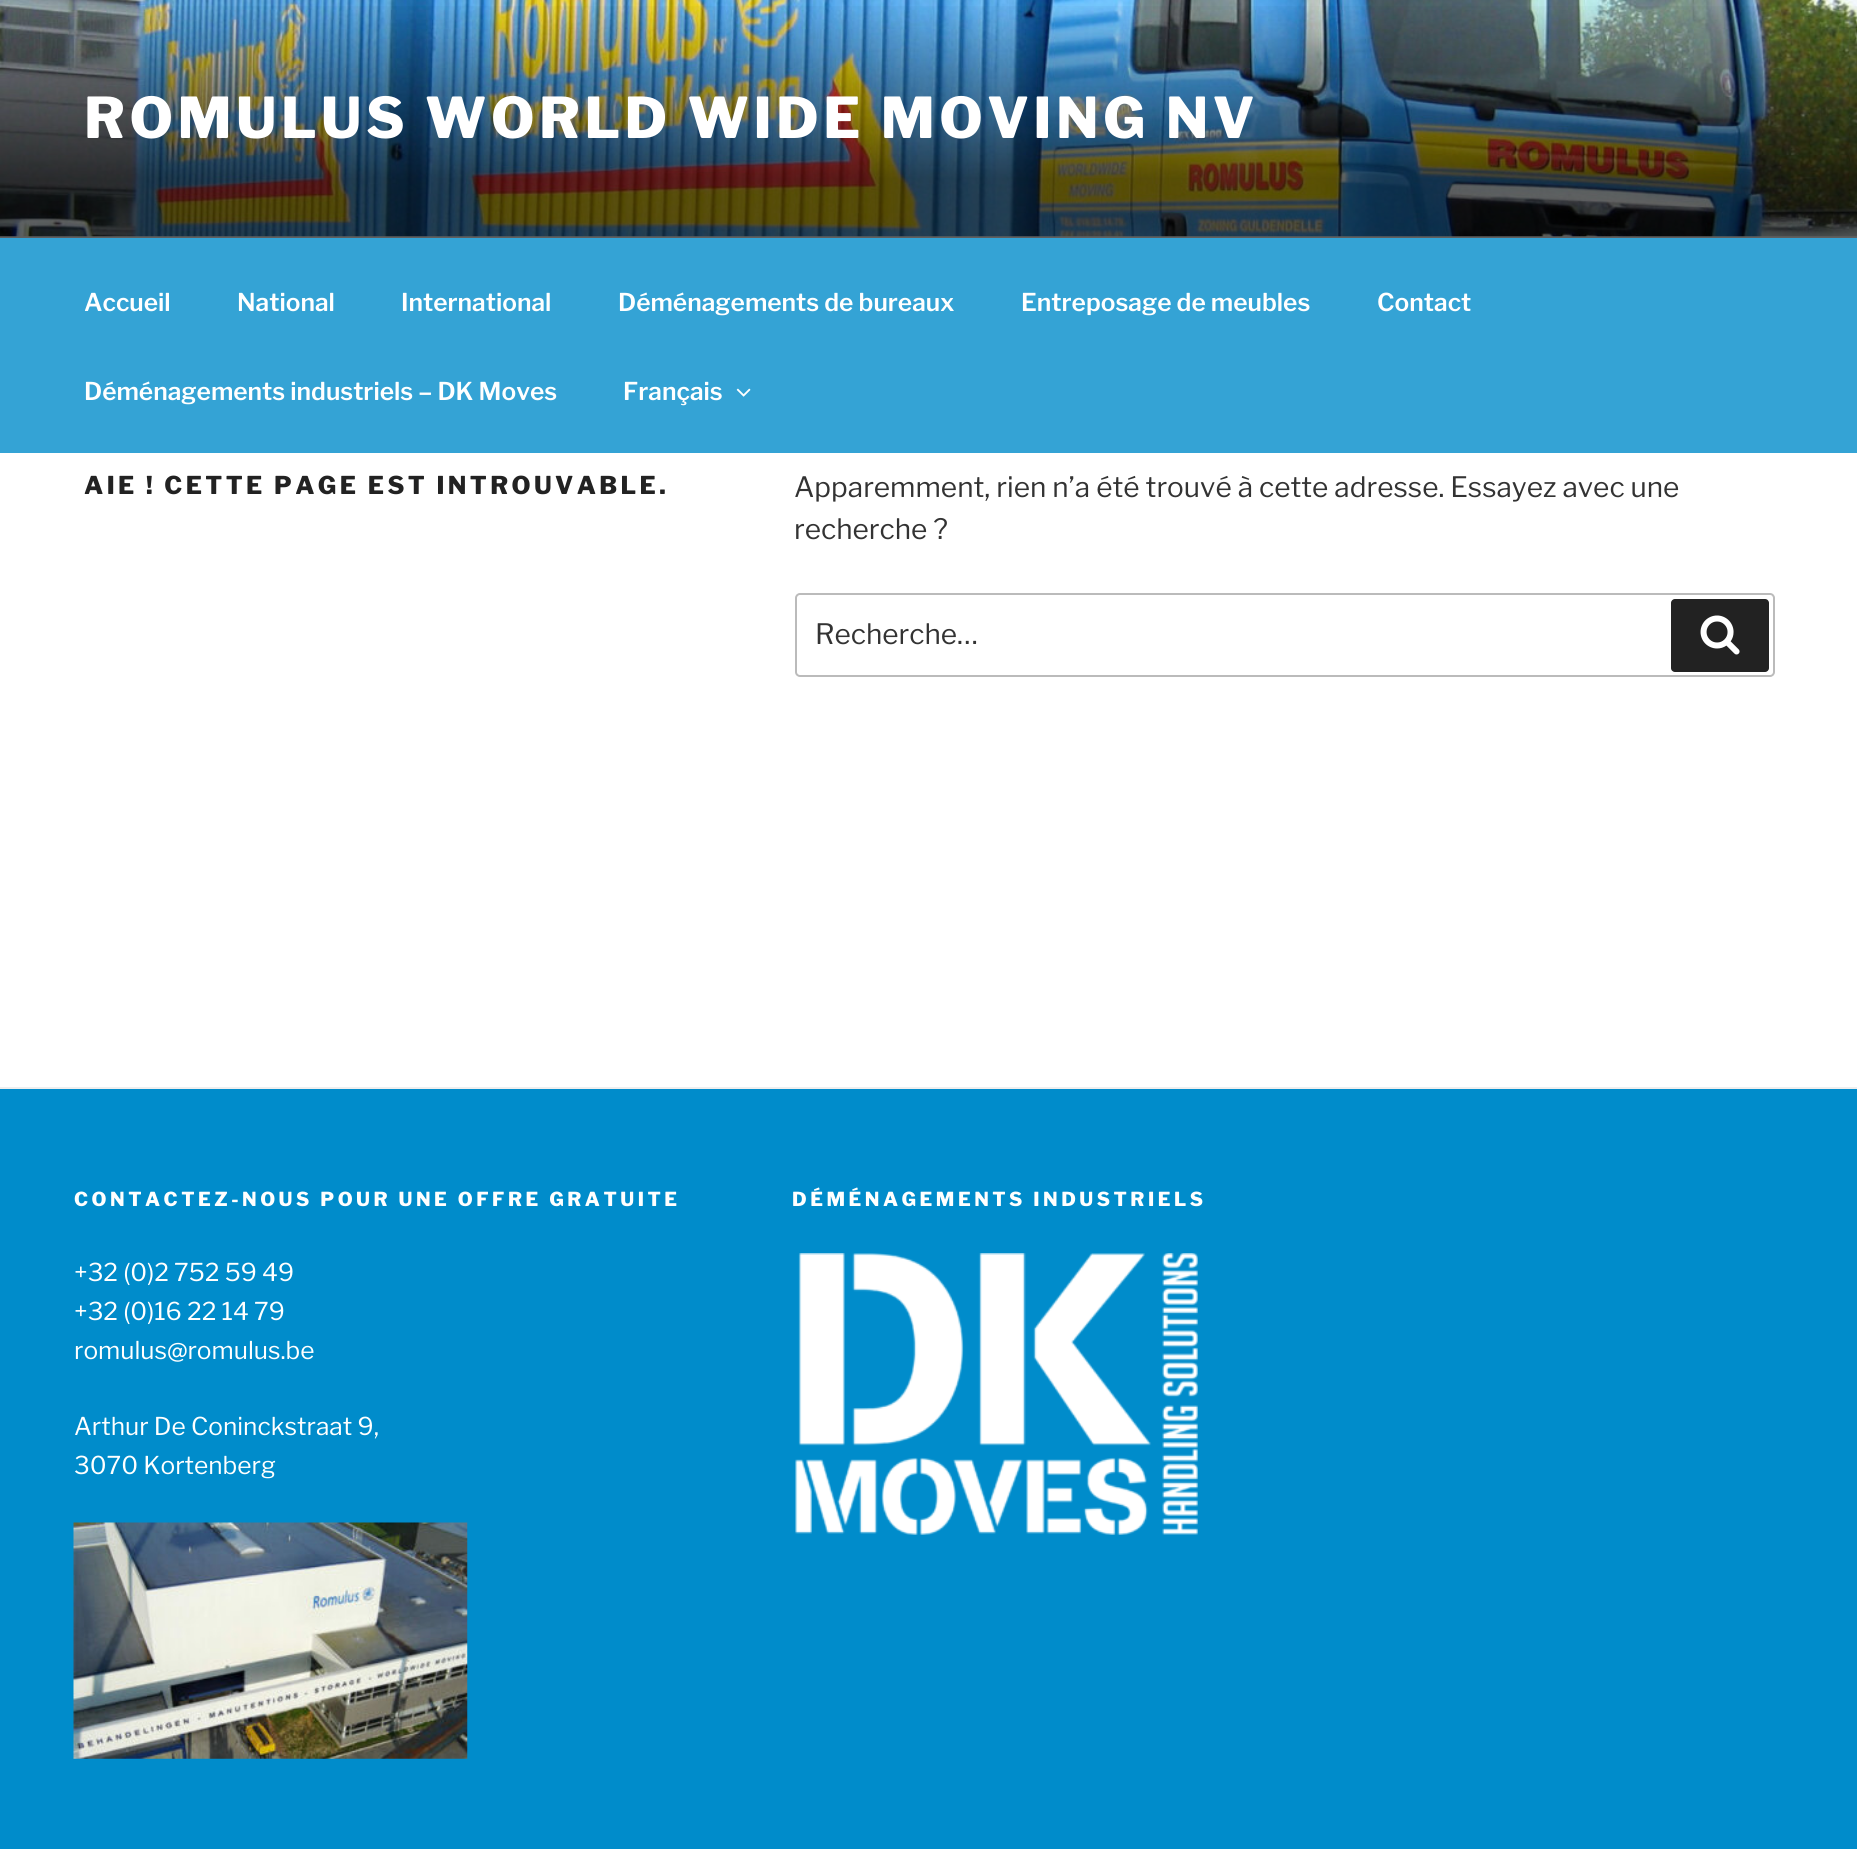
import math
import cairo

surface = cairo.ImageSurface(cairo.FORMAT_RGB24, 1857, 1849)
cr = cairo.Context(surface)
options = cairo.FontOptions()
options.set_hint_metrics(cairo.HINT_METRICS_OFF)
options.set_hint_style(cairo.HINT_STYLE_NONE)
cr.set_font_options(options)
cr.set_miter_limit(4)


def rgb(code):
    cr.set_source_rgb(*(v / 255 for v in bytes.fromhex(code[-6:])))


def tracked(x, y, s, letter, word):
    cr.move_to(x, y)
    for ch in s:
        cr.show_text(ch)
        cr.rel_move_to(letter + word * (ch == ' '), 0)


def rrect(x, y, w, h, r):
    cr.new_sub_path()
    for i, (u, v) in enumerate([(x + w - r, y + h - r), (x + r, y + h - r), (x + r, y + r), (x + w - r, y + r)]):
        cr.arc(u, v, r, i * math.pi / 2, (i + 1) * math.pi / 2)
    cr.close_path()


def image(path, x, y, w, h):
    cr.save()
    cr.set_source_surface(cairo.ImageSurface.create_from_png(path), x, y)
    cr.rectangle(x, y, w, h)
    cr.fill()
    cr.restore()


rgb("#ffffff")
cr.paint()
rgb("#fafafa")
cr.rectangle(0, 236, 1857, 2)
cr.fill()
image("img/1.png", 0, 0, 1857, 237)
gradient = cairo.LinearGradient(929, 0, 929, 238)
gradient.add_color_stop_rgba(0, 0, 0, 0, 0)
gradient.add_color_stop_rgba(0.75, 0, 0, 0, 0.62)
gradient.add_color_stop_rgba(1, 0, 0, 0, 0.62)
cr.set_source(gradient)
cr.rectangle(0, 6, 1857, 232)
cr.fill()
rgb("#34a3d5")
cr.rectangle(0, 238, 1857, 215)
cr.fill()
image("img/2.png", 736, 388, 15, 9)
rrect(796, 594, 978, 82, 4)
rgb("#bbbbbb")
cr.stroke()
rgb("#222222")
rrect(1671, 599, 98, 73, 4)
cr.fill()
image("img/3.png", 1700, 615, 40, 40)
rgb("#008ccb")
cr.rectangle(0, 1089, 1857, 760)
cr.fill()
rgb("#eeeeee")
cr.rectangle(0, 1087, 1857, 2)
cr.fill()
image("img/4.png", 73, 1522, 395, 237)
image("img/5.png", 795, 1253, 403, 282)
cr.select_font_face("Libre Franklin Thin")
cr.set_font_size(56)
rgb("#ffffff")
tracked(84, 138, "ROMULUS WORLD WIDE MOVING NV", 4.5, 0)
cr.select_font_face("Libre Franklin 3 Thin")
cr.set_font_size(24.5)
for x, y, s in [
    (84, 311, "Accueil"),
    (237, 311, "National"),
    (401, 311, "International"),
    (618, 311, "Déménagements de bureaux"),
    (1021, 311, "Entreposage de meubles"),
    (1377, 311, "Contact"),
    (84, 400, "Déménagements industriels – DK Moves"),
    (623, 400, "Français"),
]:
    cr.move_to(x, y)
    cr.show_text(s)
cr.select_font_face("Libre Franklin Thin")
rgb("#222222")
tracked(84, 494, "AIE ! CETTE PAGE EST INTROUVABLE.", 3.4, 0)
cr.select_font_face("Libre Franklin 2 Thin")
cr.set_font_size(28)
rgb("#333333")
for x, y, s in [
    (794, 497, "Apparemment, rien n’a été trouvé à cette adresse. Essayez avec une"),
    (794, 539, "recherche ?"),
    (815, 644, "Recherche…"),
]:
    cr.move_to(x, y)
    cr.show_text(s)
cr.select_font_face("Libre Franklin Thin")
cr.set_font_size(19.25)
rgb("#ffffff")
tracked(74, 1206, "CONTACTEZ-NOUS POUR UNE OFFRE GRATUITE", 3.5, 0)
cr.select_font_face("Libre Franklin 2 Thin")
cr.set_font_size(24.5)
for x, y, s in [
    (74, 1281, "+32 (0)2 752 59 49"),
    (74, 1320, "+32 (0)16 22 14 79"),
    (74, 1359, "romulus@romulus.be"),
    (74, 1435, "Arthur De Coninckstraat 9,"),
    (74, 1474, "3070 Kortenberg"),
]:
    cr.move_to(x, y)
    cr.show_text(s)
cr.select_font_face("Libre Franklin Thin")
cr.set_font_size(19.25)
tracked(792, 1206, "DÉMÉNAGEMENTS INDUSTRIELS", 3.5, 0)
surface.write_to_png("page.png")
